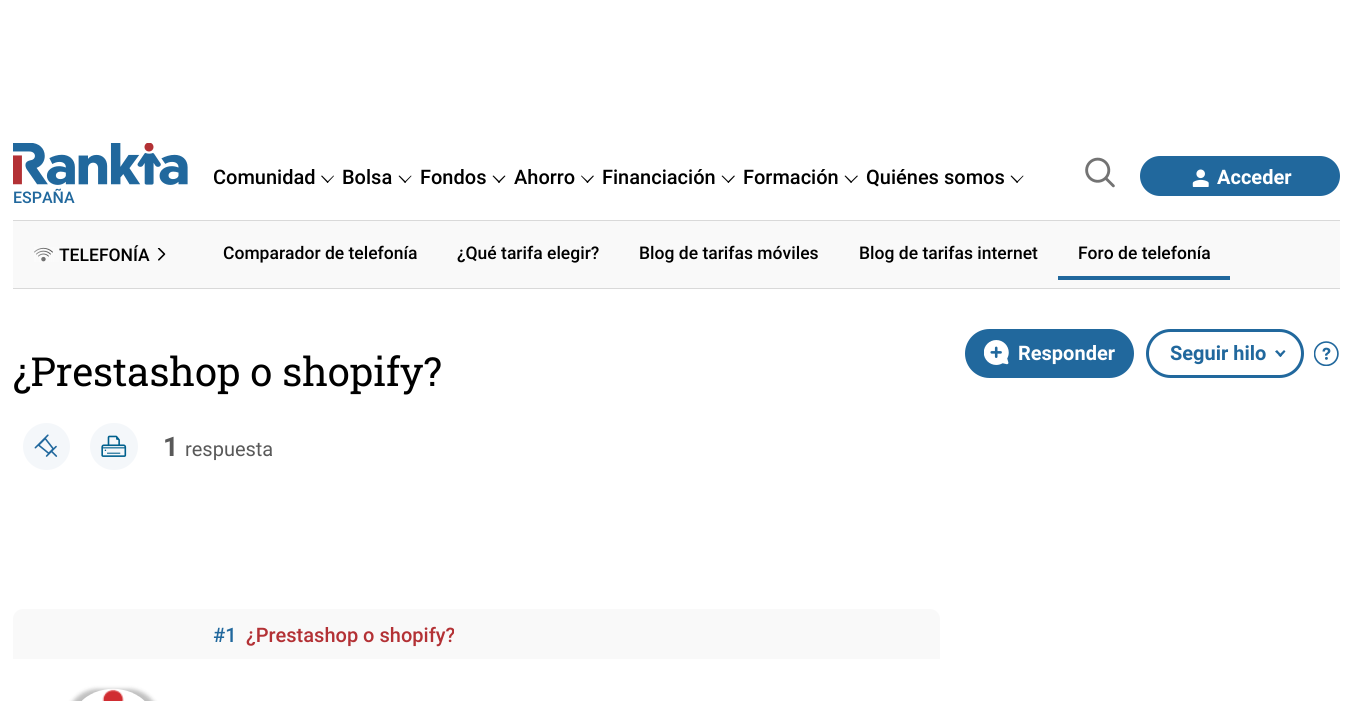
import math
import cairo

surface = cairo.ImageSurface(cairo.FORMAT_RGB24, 1352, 701)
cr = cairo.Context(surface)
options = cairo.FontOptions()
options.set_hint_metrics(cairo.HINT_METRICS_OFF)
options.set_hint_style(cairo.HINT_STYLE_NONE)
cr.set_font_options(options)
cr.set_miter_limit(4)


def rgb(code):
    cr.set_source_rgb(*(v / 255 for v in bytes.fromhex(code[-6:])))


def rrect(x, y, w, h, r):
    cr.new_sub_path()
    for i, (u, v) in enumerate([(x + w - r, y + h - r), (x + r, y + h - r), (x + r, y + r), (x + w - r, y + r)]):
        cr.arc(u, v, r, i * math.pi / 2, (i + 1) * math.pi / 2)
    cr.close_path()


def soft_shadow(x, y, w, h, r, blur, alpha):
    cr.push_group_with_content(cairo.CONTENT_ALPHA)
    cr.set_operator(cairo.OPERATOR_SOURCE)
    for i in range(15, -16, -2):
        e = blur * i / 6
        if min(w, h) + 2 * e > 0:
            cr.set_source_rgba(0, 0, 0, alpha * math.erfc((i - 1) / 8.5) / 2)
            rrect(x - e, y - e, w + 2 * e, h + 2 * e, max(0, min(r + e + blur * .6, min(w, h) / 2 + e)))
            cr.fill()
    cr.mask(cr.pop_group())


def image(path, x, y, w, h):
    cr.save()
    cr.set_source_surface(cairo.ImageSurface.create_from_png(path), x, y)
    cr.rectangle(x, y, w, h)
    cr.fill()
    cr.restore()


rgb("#ffffff")
cr.paint()
rgb("#000000")
cr.new_path()
cr.move_to(333.5, 175.5)
cr.line_to(334, 176)
cr.line_to(327.5, 183)
cr.line_to(327, 182)
cr.close_path()
cr.fill()
cr.new_path()
cr.move_to(322, 175.5)
cr.line_to(328.5, 182)
cr.line_to(327.5, 183)
cr.line_to(321, 176)
cr.close_path()
cr.fill()
cr.new_path()
cr.move_to(411, 175.5)
cr.line_to(411.5, 176)
cr.line_to(405, 183)
cr.line_to(404.5, 182)
cr.close_path()
cr.fill()
cr.new_path()
cr.move_to(399.5, 175.5)
cr.line_to(406, 182)
cr.line_to(405, 183)
cr.line_to(398.5, 176)
cr.close_path()
cr.fill()
cr.new_path()
cr.move_to(504.5, 175.5)
cr.line_to(505.5, 176)
cr.line_to(499, 183)
cr.line_to(498, 182)
cr.close_path()
cr.fill()
cr.new_path()
cr.move_to(493.5, 175.5)
cr.line_to(500, 182)
cr.line_to(499, 183)
cr.line_to(492.5, 176)
cr.close_path()
cr.fill()
cr.new_path()
cr.move_to(593, 175.5)
cr.line_to(594, 176)
cr.line_to(587.5, 183)
cr.line_to(586.5, 182)
cr.close_path()
cr.fill()
cr.new_path()
cr.move_to(581.5, 175.5)
cr.line_to(588.5, 182)
cr.line_to(587.5, 183)
cr.line_to(581, 176)
cr.close_path()
cr.fill()
cr.new_path()
cr.move_to(734, 175.5)
cr.line_to(735, 176)
cr.line_to(728.5, 183)
cr.line_to(727.5, 182)
cr.close_path()
cr.fill()
cr.new_path()
cr.move_to(722.5, 175.5)
cr.line_to(729, 182)
cr.line_to(728.5, 183)
cr.line_to(721.5, 176)
cr.close_path()
cr.fill()
cr.new_path()
cr.move_to(857, 175.5)
cr.line_to(858, 176)
cr.line_to(851, 183)
cr.line_to(850.5, 182)
cr.close_path()
cr.fill()
cr.new_path()
cr.move_to(845.5, 175.5)
cr.line_to(852, 182)
cr.line_to(851, 183)
cr.line_to(844.5, 176)
cr.close_path()
cr.fill()
cr.new_path()
cr.move_to(1023, 175.5)
cr.line_to(1023.5, 176)
cr.line_to(1017, 183)
cr.line_to(1016.5, 182)
cr.close_path()
cr.fill()
cr.new_path()
cr.move_to(1011.5, 175.5)
cr.line_to(1018, 182)
cr.line_to(1017, 183)
cr.line_to(1010.5, 176)
cr.close_path()
cr.fill()
image("img/1.png", 13, 143, 175, 42)
image("img/2.png", 1085, 157, 30, 31)
rgb("#21689d")
rrect(1141.5, 157.5, 197, 37, 18.5)
cr.fill_preserve()
cr.set_line_width(3)
cr.stroke()
image("img/3.png", 1192, 169, 17, 18)
for x, y, w, h, color in [
    (13, 221, 1327, 67, "#f9f9f9"),
    (13, 220, 1327, 1, "#d9d9d9"),
    (13, 288, 1327, 1, "#d9d9d9"),
]:
    rgb(color)
    cr.rectangle(x, y, w, h)
    cr.fill()
image("img/4.png", 34, 247, 19, 15)
image("img/5.png", 157, 248, 9, 13)
rgb("#21689d")
cr.rectangle(1058, 276, 172, 4)
cr.fill()
rgb("#f4f7fa")
cr.arc(46.5, 446.5, 23.5, 0, 2 * math.pi)
cr.fill()
image("img/6.png", 34, 434, 24, 23)
rrect(90, 423, 48, 47, 23.5)
cr.fill()
image("img/7.png", 101, 435, 26, 22)
rgb("#21689d")
rrect(966.5, 330.5, 166, 46, 23)
cr.fill_preserve()
cr.stroke()
image("img/8.png", 984, 340, 25, 25)
rrect(1147.5, 330.5, 155, 46, 23)
cr.stroke()
cr.new_path()
cr.move_to(1284, 350)
cr.line_to(1285.5, 351.5)
cr.line_to(1280.5, 357)
cr.line_to(1278.5, 355.5)
cr.close_path()
cr.fill()
cr.new_path()
cr.move_to(1277, 350)
cr.line_to(1282, 355.5)
cr.line_to(1280.5, 357)
cr.line_to(1275, 351.5)
cr.close_path()
cr.fill()
image("img/9.png", 1314, 341, 25, 25)
rgb("#f9f9f9")
cr.new_path()
cr.move_to(23, 609)
cr.line_to(930, 609)
cr.curve_to(935.5, 609, 940, 613.5, 940, 619)
cr.line_to(940, 659)
cr.line_to(13, 659)
cr.line_to(13, 619)
cr.curve_to(13, 613.5, 17.5, 609, 23, 609)
cr.close_path()
cr.fill()
rgb("#000000")
soft_shadow(66, 689, 94, 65, 47, 2, 0.25)
image("img/10.png", 82, 688, 63, 13)
cr.select_font_face("Roboto Medium")
cr.set_font_size(20)
rgb("#000000")
for x, y, s in [
    (213, 184, "Comunidad"),
    (342, 184, "Bolsa"),
    (420, 184, "Fondos"),
    (514, 184, "Ahorro"),
    (602, 184, "Financiación"),
    (743, 184, "Formación"),
    (866, 184, "Quiénes somos"),
]:
    cr.move_to(x, y)
    cr.show_text(s)
cr.set_font_size(16)
rgb("#21689d")
cr.move_to(13, 203)
cr.show_text("ESPAÑA")
cr.select_font_face("Roboto", cairo.FONT_SLANT_NORMAL, cairo.FONT_WEIGHT_BOLD)
cr.set_font_size(20)
rgb("#ffffff")
cr.move_to(1217, 184)
cr.show_text("Acceder")
cr.select_font_face("Roboto Medium")
cr.set_font_size(17.5)
rgb("#000000")
cr.move_to(59, 261)
cr.show_text("TELEFONÍA")
gradient = cairo.LinearGradient(13, 251, 63, 251)
gradient.add_color_stop_rgba(0, 0.976, 0.976, 0.976, 1)
gradient.add_color_stop_rgba(1, 1, 1, 1, 0.1)
cr.set_source(gradient)
cr.rectangle(34, 247, 29, 15)
cr.fill()
rgb("#000000")
for x, y, s in [
    (223, 259, "Comparador de telefonía"),
    (457, 259, "¿Qué tarifa elegir?"),
    (639, 259, "Blog de tarifas móviles"),
    (859, 259, "Blog de tarifas internet"),
    (1078, 259, "Foro de telefonía"),
]:
    cr.move_to(x, y)
    cr.show_text(s)
cr.select_font_face("Roboto Slab")
cr.set_font_size(40)
cr.move_to(13, 386)
cr.show_text("¿Prestashop o shopify?")
cr.select_font_face("Roboto", cairo.FONT_SLANT_NORMAL, cairo.FONT_WEIGHT_BOLD)
cr.set_font_size(27)
rgb("#595959")
cr.move_to(163, 456)
cr.show_text("1")
cr.select_font_face("Roboto")
cr.set_font_size(20)
cr.move_to(185, 456)
cr.show_text("respuesta")
cr.select_font_face("Roboto", cairo.FONT_SLANT_NORMAL, cairo.FONT_WEIGHT_BOLD)
rgb("#ffffff")
cr.move_to(1018, 360)
cr.show_text("Responder")
rgb("#21689d")
cr.move_to(1170, 360)
cr.show_text("Seguir hilo")
cr.select_font_face("Roboto Medium")
cr.move_to(213, 642)
cr.show_text("#1")
rgb("#b33135")
cr.move_to(246, 642)
cr.show_text("¿Prestashop o shopify?")
surface.write_to_png("page.png")
